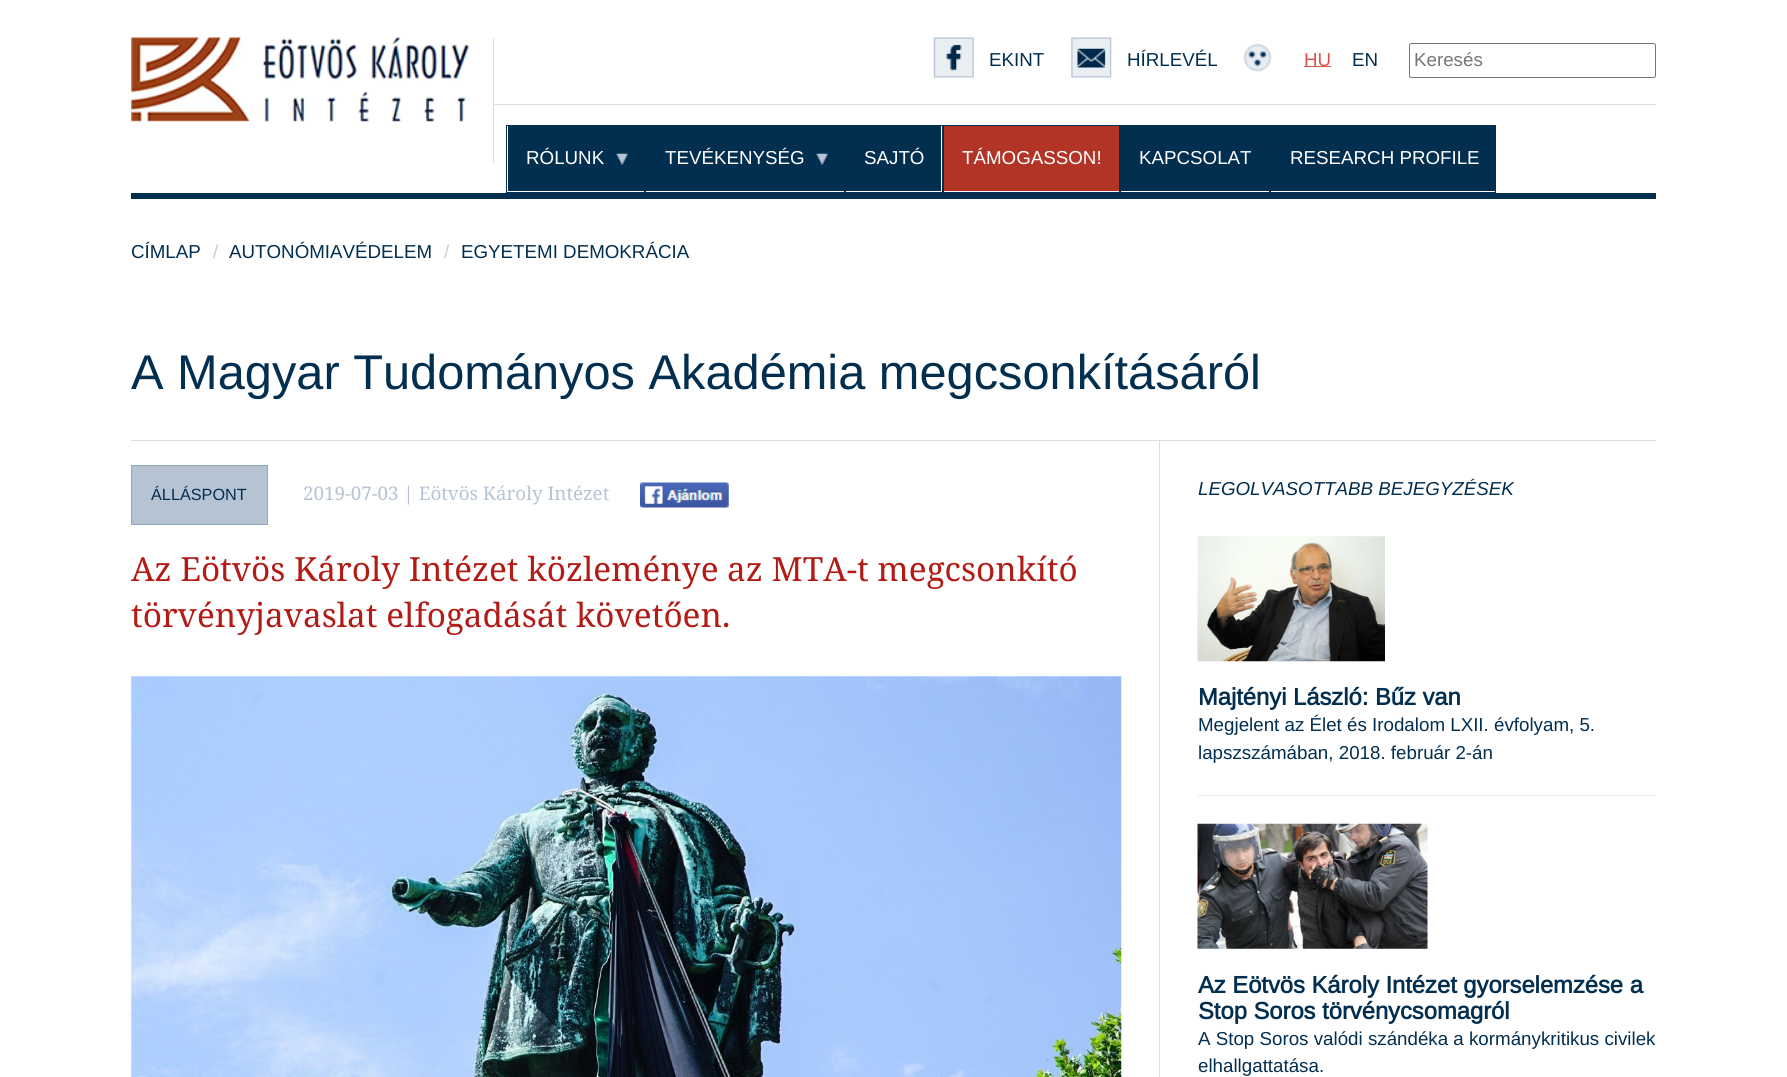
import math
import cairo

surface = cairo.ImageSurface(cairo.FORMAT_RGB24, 1787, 1077)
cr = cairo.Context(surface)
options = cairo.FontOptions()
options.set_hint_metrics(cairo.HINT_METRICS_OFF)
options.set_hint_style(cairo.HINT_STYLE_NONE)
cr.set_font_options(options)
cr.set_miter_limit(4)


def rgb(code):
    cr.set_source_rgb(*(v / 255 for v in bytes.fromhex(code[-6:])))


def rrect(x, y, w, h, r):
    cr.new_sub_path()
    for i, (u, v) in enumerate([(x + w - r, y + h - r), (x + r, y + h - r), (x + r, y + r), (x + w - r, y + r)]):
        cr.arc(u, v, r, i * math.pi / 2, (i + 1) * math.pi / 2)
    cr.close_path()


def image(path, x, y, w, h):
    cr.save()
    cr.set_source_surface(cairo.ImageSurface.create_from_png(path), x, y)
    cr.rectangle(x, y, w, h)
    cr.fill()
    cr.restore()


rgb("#ffffff")
cr.paint()
rgb("#d9dfe9")
cr.rectangle(493, 38, 1, 125)
cr.fill()
image("img/1.png", 131, 37, 338, 85)
cr.rectangle(494, 104, 1162, 1)
cr.fill()
image("img/2.png", 933, 37, 41, 41)
image("img/3.png", 1071, 37, 41, 41)
image("img/4.png", 1243, 43, 29, 29)
rgb("#d9534f")
cr.rectangle(1304, 66, 27, 1)
cr.fill()
rrect(1409.5, 43.5, 246, 34, 2)
rgb("#767676")
cr.set_line_width(1)
cr.stroke()
cr.rectangle(506.5, 125.5, 138, 67)
rgb("#022e4f")
cr.stroke()
cr.rectangle(508, 126, 136, 65)
cr.fill()
image("img/5.png", 616, 153, 12, 12)
cr.rectangle(645.5, 125.5, 199, 67)
cr.stroke()
cr.rectangle(646, 126, 198, 65)
cr.fill()
image("img/5.png", 816, 153, 12, 12)
cr.rectangle(845.5, 125.5, 97, 67)
cr.stroke()
cr.rectangle(846, 126, 95, 65)
cr.fill()
cr.rectangle(943.5, 125.5, 176, 67)
cr.stroke()
rgb("#b13427")
cr.rectangle(944, 126, 175, 65)
cr.fill()
cr.rectangle(1120.5, 125.5, 149, 67)
rgb("#022e4f")
cr.stroke()
cr.rectangle(1121, 126, 148, 65)
cr.fill()
cr.rectangle(1270.5, 125.5, 225, 67)
cr.stroke()
for x, y, w, h, color in [
    (1271, 126, 224, 65, "#022e4f"),
    (131, 193, 1525, 6, "#022e4f"),
    (131, 440, 1525, 1, "#d9dfe9"),
    (1159, 441, 1, 636, "#d9dfe9"),
]:
    rgb(color)
    cr.rectangle(x, y, w, h)
    cr.fill()
rgb("#b6c3d3")
cr.rectangle(131.5, 465.5, 136, 59)
cr.fill_preserve()
rgb("#93a5bb")
cr.stroke()
image("img/6.png", 640, 482, 89, 26)
image("img/7.png", 131, 676, 991, 401)
image("img/8.png", 1197, 536, 188, 126)
rgb("#eeeeee")
cr.rectangle(1198, 795, 458, 1)
cr.fill()
image("img/9.png", 1197, 823, 231, 126)
cr.select_font_face("Liberation Sans")
cr.set_font_size(18.75)
rgb("#022e4f")
cr.move_to(989, 66)
cr.show_text("EKINT")
cr.move_to(1127, 66)
cr.show_text("HÍRLEVÉL")
rgb("#d9534f")
cr.move_to(1304, 66)
cr.show_text("HU")
rgb("#022e4f")
cr.move_to(1352, 66)
cr.show_text("EN")
rgb("#757575")
cr.move_to(1414, 66)
cr.show_text("Keresés")
rgb("#ffffff")
for x, y, s in [
    (526, 164, "RÓLUNK"),
    (665, 164, "TEVÉKENYSÉG"),
    (864, 164, "SAJTÓ"),
    (962, 164, "TÁMOGASSON!"),
    (1139, 164, "KAPCSOLAT"),
    (1290, 164, "RESEARCH PROFILE"),
]:
    cr.move_to(x, y)
    cr.show_text(s)
rgb("#022e4f")
cr.move_to(131, 258)
cr.show_text("CÍMLAP")
rgb("#cccccc")
cr.move_to(213, 258)
cr.show_text("/")
rgb("#022e4f")
cr.move_to(229, 258)
cr.show_text("AUTONÓMIAVÉDELEM")
rgb("#cccccc")
cr.move_to(444, 258)
cr.show_text("/")
rgb("#022e4f")
cr.move_to(461, 258)
cr.show_text("EGYETEMI DEMOKRÁCIA")
cr.set_font_size(48.75)
cr.move_to(131, 389)
cr.show_text("A Magyar Tudományos Akadémia megcsonkításáról")
cr.set_font_size(16.25)
cr.move_to(151, 500)
cr.show_text("ÁLLÁSPONT")
cr.select_font_face("Noto Serif")
cr.set_font_size(18.75)
rgb("#b6c3d3")
cr.move_to(303, 500)
cr.show_text("2019-07-03 | Eötvös Károly Intézet")
cr.set_font_size(33.3)
rgb("#b21b16")
cr.move_to(131, 581)
cr.show_text("Az Eötvös Károly Intézet közleménye az MTA-t megcsonkító")
cr.move_to(131, 627)
cr.show_text("törvényjavaslat elfogadását követően.")
cr.select_font_face("Liberation Sans", cairo.FONT_SLANT_ITALIC)
cr.set_font_size(18.75)
rgb("#022e4f")
cr.move_to(1198, 495)
cr.show_text("LEGOLVASOTTABB BEJEGYZÉSEK")
cr.select_font_face("Liberation Sans", cairo.FONT_SLANT_NORMAL, cairo.FONT_WEIGHT_BOLD)
cr.set_font_size(23.75)
cr.move_to(1198, 705)
cr.show_text("Majtényi László: Bűz van")
cr.select_font_face("Liberation Sans")
cr.set_font_size(18.75)
cr.move_to(1198, 731)
cr.show_text("Megjelent az Élet és Irodalom LXII. évfolyam, 5.")
cr.move_to(1198, 759)
cr.show_text("lapszszámában, 2018. február 2-án")
cr.select_font_face("Liberation Sans", cairo.FONT_SLANT_NORMAL, cairo.FONT_WEIGHT_BOLD)
cr.set_font_size(23.75)
cr.move_to(1198, 993)
cr.show_text("Az Eötvös Károly Intézet gyorselemzése a")
cr.move_to(1198, 1019)
cr.show_text("Stop Soros törvénycsomagról")
cr.select_font_face("Liberation Sans")
cr.set_font_size(18.75)
cr.move_to(1198, 1045)
cr.show_text("A Stop Soros valódi szándéka a kormánykritikus civilek")
cr.move_to(1198, 1072)
cr.show_text("elhallgattatása.")
surface.write_to_png("page.png")
